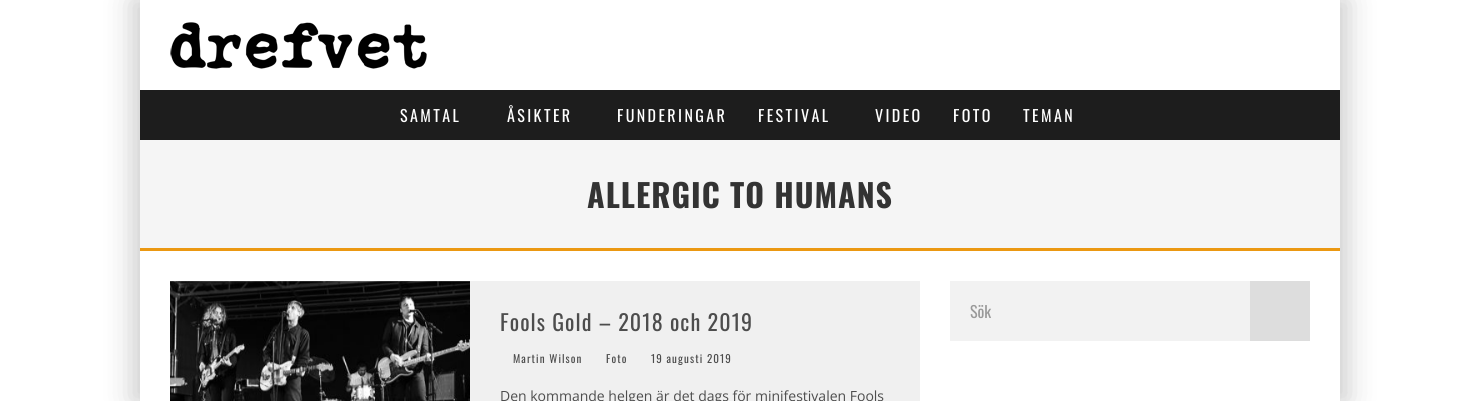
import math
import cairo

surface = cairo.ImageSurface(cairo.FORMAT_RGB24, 1480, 401)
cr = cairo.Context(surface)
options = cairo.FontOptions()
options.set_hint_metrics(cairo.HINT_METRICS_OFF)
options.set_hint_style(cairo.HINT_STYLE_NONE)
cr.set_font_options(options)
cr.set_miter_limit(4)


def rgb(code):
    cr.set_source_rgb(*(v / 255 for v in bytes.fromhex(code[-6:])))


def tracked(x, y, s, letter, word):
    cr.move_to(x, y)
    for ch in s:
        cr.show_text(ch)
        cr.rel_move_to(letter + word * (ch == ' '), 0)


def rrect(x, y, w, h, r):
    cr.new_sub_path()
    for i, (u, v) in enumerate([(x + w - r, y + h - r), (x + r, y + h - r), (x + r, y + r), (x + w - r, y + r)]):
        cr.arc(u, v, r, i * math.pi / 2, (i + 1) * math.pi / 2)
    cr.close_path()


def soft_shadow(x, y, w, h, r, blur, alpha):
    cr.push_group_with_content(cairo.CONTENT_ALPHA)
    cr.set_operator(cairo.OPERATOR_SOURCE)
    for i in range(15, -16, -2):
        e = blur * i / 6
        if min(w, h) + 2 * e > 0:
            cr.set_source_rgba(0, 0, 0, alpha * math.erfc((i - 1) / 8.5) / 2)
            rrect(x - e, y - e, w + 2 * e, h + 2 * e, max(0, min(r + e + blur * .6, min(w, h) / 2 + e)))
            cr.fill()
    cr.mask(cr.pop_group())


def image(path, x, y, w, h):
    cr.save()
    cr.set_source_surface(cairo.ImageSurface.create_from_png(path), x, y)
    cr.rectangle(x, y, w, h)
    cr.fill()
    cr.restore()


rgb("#ffffff")
cr.paint()
cr.save()
cr.set_fill_rule(cairo.FILL_RULE_EVEN_ODD)
cr.new_path()
cr.move_to(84, 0)
cr.line_to(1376, 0)
cr.line_to(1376, 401)
cr.line_to(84, 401)
cr.close_path()
cr.move_to(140, 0)
cr.line_to(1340, 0)
cr.line_to(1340, 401)
cr.line_to(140, 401)
cr.close_path()
cr.clip()
rgb("#000000")
soft_shadow(130, 0, 1200, 401, 0, 15, 0.15)
cr.restore()
cr.save()
cr.set_fill_rule(cairo.FILL_RULE_EVEN_ODD)
cr.new_path()
cr.move_to(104, 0)
cr.line_to(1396, 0)
cr.line_to(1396, 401)
cr.line_to(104, 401)
cr.close_path()
cr.move_to(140, 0)
cr.line_to(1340, 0)
cr.line_to(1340, 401)
cr.line_to(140, 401)
cr.close_path()
cr.clip()
rgb("#000000")
soft_shadow(150, 0, 1200, 401, 0, 15, 0.15)
cr.restore()
image("img/1.png", 170, 22, 257, 47)
for x, y, w, h, color in [
    (140, 90, 1200, 50, "#1d1d1d"),
    (140, 140, 1200, 108, "#f5f5f5"),
    (140, 248, 1200, 3, "#eb9812"),
    (950, 281, 300, 60, "#f2f2f2"),
    (1250, 281, 60, 60, "#dddddd"),
    (170, 281, 750, 120, "#f0f0f0"),
]:
    rgb(color)
    cr.rectangle(x, y, w, h)
    cr.fill()
image("img/2.png", 170, 281, 300, 120)
cr.select_font_face("Oswald")
cr.set_font_size(16)
rgb("#ffffff")
for x, y, s in [
    (400, 122, "SAMTAL"),
    (507, 122, "ÅSIKTER"),
    (617, 122, "FUNDERINGAR"),
    (758, 122, "FESTIVAL"),
    (875, 122, "VIDEO"),
    (953, 122, "FOTO"),
    (1023, 122, "TEMAN"),
]:
    tracked(x, y, s, 2.4, 0)
cr.select_font_face("Oswald", cairo.FONT_SLANT_NORMAL, cairo.FONT_WEIGHT_BOLD)
cr.set_font_size(32)
rgb("#333333")
tracked(587, 208, "ALLERGIC TO HUMANS", 1, 0)
cr.select_font_face("Oswald")
cr.set_font_size(16)
rgb("#999999")
cr.move_to(970, 318)
cr.show_text("Sök")
cr.set_font_size(22)
rgb("#4d4d4d")
tracked(500, 331, "Fools Gold – 2018 och 2019", 1.1, 0)
cr.set_font_size(11)
for x, y, s in [
    (513, 363, "Martin Wilson"),
    (606, 363, "Foto"),
    (651, 363, "19 augusti 2019"),
]:
    tracked(x, y, s, 1.1, 0)
cr.select_font_face("Open Sans")
cr.set_font_size(14)
cr.move_to(500, 401)
cr.show_text("Den kommande helgen är det dags för minifestivalen Fools")
surface.write_to_png("page.png")
